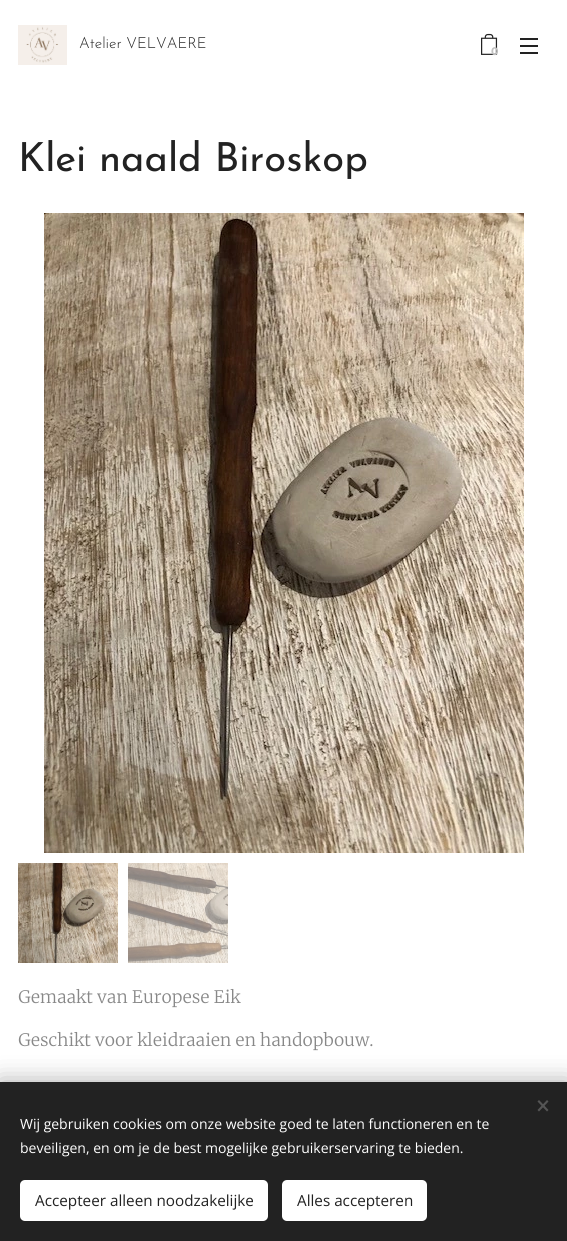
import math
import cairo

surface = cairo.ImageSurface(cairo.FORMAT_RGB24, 567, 1241)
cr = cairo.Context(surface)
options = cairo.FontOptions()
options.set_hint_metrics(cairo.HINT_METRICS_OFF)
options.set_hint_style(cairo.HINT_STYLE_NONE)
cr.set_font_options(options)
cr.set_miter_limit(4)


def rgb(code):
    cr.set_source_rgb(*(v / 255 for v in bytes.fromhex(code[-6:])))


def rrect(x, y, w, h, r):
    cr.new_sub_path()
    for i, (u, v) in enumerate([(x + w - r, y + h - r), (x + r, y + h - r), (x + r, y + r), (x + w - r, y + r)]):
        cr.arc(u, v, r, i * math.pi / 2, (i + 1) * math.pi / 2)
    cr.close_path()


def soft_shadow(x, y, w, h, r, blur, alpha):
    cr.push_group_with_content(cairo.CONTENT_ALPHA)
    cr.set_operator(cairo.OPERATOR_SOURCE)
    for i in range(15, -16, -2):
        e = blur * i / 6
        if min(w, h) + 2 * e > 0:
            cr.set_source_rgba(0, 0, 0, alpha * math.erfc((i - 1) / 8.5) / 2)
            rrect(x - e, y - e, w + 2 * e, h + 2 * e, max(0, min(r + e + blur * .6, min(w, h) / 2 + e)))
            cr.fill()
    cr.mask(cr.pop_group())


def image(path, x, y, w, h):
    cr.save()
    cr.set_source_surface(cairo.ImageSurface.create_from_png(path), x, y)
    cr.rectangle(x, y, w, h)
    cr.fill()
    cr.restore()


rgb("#ffffff")
cr.paint()
image("img/1.png", 18, 25, 49, 40)
image("img/2.png", 481, 33, 17, 22)
for x, y, w, h, color in [
    (520, 45, 18, 2, "#222222"),
    (520, 38, 18, 2, "#222222"),
    (520, 52, 18, 2, "#222222"),
]:
    rgb(color)
    cr.rectangle(x, y, w, h)
    cr.fill()
image("img/3.png", 44, 213, 480, 640)
image("img/4.png", 18, 863, 100, 100)
image("img/5.png", 128, 863, 100, 100)
rgb("#000000")
soft_shadow(0, 1082, 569, 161, 0, 12.5, 0.33)
rgb("#222222")
cr.rectangle(0, 1082, 567, 159)
cr.fill()
rgb("#555555")
cr.new_path()
cr.move_to(537.5, 1110)
cr.line_to(547, 1100)
cr.line_to(548.5, 1101.5)
cr.line_to(539, 1111.5)
cr.close_path()
cr.fill()
cr.new_path()
cr.move_to(539, 1100)
cr.line_to(548.5, 1110)
cr.line_to(547, 1111.5)
cr.line_to(537.5, 1101.5)
cr.close_path()
cr.fill()
rgb("#ffffff")
rrect(20, 1180, 248, 41, 5)
cr.fill()
rrect(282, 1180, 145, 41, 5)
cr.fill()
cr.select_font_face("Josefin Sans Light")
cr.set_font_size(15.25)
rgb("#222222")
cr.move_to(79, 48)
cr.show_text("Atelier VELVAERE")
cr.select_font_face("Montserrat", cairo.FONT_SLANT_NORMAL, cairo.FONT_WEIGHT_BOLD)
cr.set_font_size(11)
rgb("#c1c1c1")
cr.move_to(491, 55)
cr.show_text("0")
cr.select_font_face("Josefin Sans")
cr.set_font_size(40)
rgb("#222222")
cr.move_to(18, 171)
cr.show_text("Klei naald Biroskop")
cr.select_font_face("Merriweather Light")
cr.set_font_size(17.2)
rgb("#888888")
cr.move_to(18, 1003)
cr.show_text("Gemaakt van Europese Eik")
cr.move_to(18, 1046)
cr.show_text("Geschikt voor kleidraaien en handopbouw.")
cr.select_font_face("Open Sans")
cr.set_font_size(14)
rgb("#ffffff")
cr.move_to(20, 1129)
cr.show_text("Wij gebruiken cookies om onze website goed te laten functioneren en te")
cr.move_to(20, 1153)
cr.show_text("beveiligen, en om je de best mogelijke gebruikerservaring te bieden.")
cr.set_font_size(15.25)
rgb("#222222")
cr.move_to(35, 1206)
cr.show_text("Accepteer alleen noodzakelijke")
cr.move_to(297, 1206)
cr.show_text("Alles accepteren")
surface.write_to_png("page.png")
